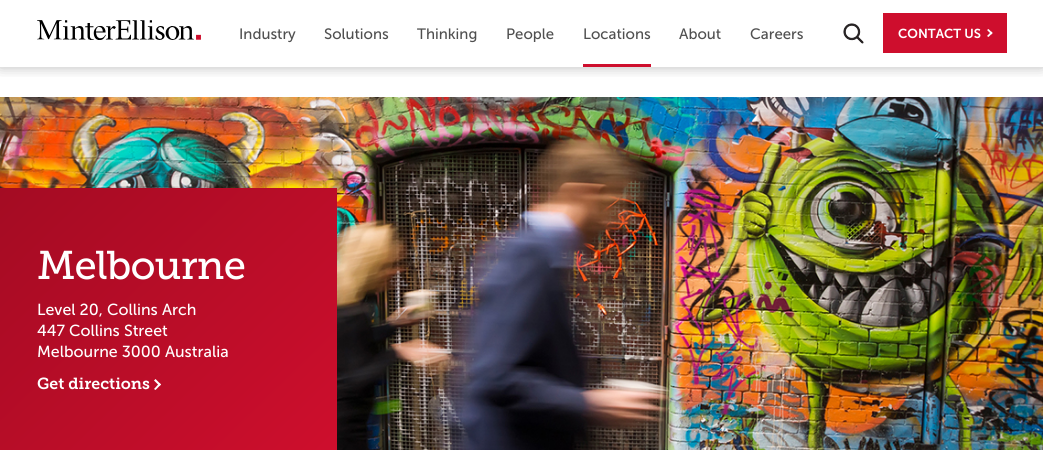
import math
import cairo

surface = cairo.ImageSurface(cairo.FORMAT_RGB24, 1043, 465)
cr = cairo.Context(surface)
options = cairo.FontOptions()
options.set_hint_metrics(cairo.HINT_METRICS_OFF)
options.set_hint_style(cairo.HINT_STYLE_NONE)
cr.set_font_options(options)
cr.set_miter_limit(4)


def rgb(code):
    cr.set_source_rgb(*(v / 255 for v in bytes.fromhex(code[-6:])))


def tracked(x, y, s, letter, word):
    cr.move_to(x, y)
    for ch in s:
        cr.show_text(ch)
        cr.rel_move_to(letter + word * (ch == ' '), 0)


def rrect(x, y, w, h, r):
    cr.new_sub_path()
    for i, (u, v) in enumerate([(x + w - r, y + h - r), (x + r, y + h - r), (x + r, y + r), (x + w - r, y + r)]):
        cr.arc(u, v, r, i * math.pi / 2, (i + 1) * math.pi / 2)
    cr.close_path()


def soft_shadow(x, y, w, h, r, blur, alpha):
    cr.push_group_with_content(cairo.CONTENT_ALPHA)
    cr.set_operator(cairo.OPERATOR_SOURCE)
    for i in range(15, -16, -2):
        e = blur * i / 6
        if min(w, h) + 2 * e > 0:
            cr.set_source_rgba(0, 0, 0, alpha * math.erfc((i - 1) / 8.5) / 2)
            rrect(x - e, y - e, w + 2 * e, h + 2 * e, max(0, min(r + e + blur * .6, min(w, h) / 2 + e)))
            cr.fill()
    cr.mask(cr.pop_group())


def image(path, x, y, w, h):
    cr.save()
    cr.set_source_surface(cairo.ImageSurface.create_from_png(path), x, y)
    cr.rectangle(x, y, w, h)
    cr.fill()
    cr.restore()


rgb("#ffffff")
cr.paint()
cr.save()
cr.rectangle(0, 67, 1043, 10)
cr.clip()
rgb("#000000")
soft_shadow(0, -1, 1043, 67, 0, 7, 0.32)
cr.restore()
image("img/1.png", 37, 20, 164, 20)
rgb("#ce0e2d")
cr.rectangle(583, 64, 68, 3)
cr.fill()
image("img/2.png", 843, 23, 21, 21)
cr.rectangle(883, 13, 124, 40)
cr.fill()
rgb("#ffffff")
cr.new_path()
cr.move_to(987, 30)
cr.line_to(988.5, 29)
cr.line_to(992.5, 33)
cr.line_to(991.5, 34.5)
cr.close_path()
cr.fill()
cr.new_path()
cr.move_to(987, 36)
cr.line_to(991.5, 31.5)
cr.line_to(992.5, 33)
cr.line_to(988.5, 37)
cr.close_path()
cr.fill()
image("img/3.png", 0, 97, 1043, 353)
gradient = cairo.LinearGradient(-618, -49, 92, 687)
gradient.add_color_stop_rgba(0, 0.608, 0.043, 0.129, 1)
gradient.add_color_stop_rgba(0.5, 0.608, 0.043, 0.129, 1)
gradient.add_color_stop_rgba(1, 0.808, 0.055, 0.176, 1)
cr.set_source(gradient)
cr.rectangle(0, 188, 337, 262)
cr.fill()
rgb("#ffffff")
cr.new_path()
cr.move_to(154, 380.5)
cr.line_to(155.5, 379)
cr.line_to(161, 384.5)
cr.line_to(159.5, 386)
cr.close_path()
cr.fill()
cr.new_path()
cr.move_to(154, 389)
cr.line_to(159.5, 383)
cr.line_to(161, 384.5)
cr.line_to(155.5, 390)
cr.close_path()
cr.fill()
cr.select_font_face("Museo Sans")
cr.set_font_size(15)
rgb("#505050")
for x, y, s in [
    (239, 39, "Industry"),
    (324, 39, "Solutions"),
    (417, 39, "Thinking"),
    (506, 39, "People"),
    (583, 39, "Locations"),
    (679, 39, "About"),
    (750, 39, "Careers"),
]:
    cr.move_to(x, y)
    cr.show_text(s)
cr.select_font_face("Museo Sans SemiBold")
cr.set_font_size(13)
rgb("#ffffff")
cr.move_to(898, 38)
cr.show_text("CONTACT US")
cr.select_font_face("Museo Slab")
cr.set_font_size(40)
tracked(37, 279, "Melbourne", -0.75, 0)
cr.select_font_face("Museo Sans")
cr.set_font_size(16)
for x, y, s in [
    (37, 315, "Level 20, Collins Arch"),
    (37, 336, "447 Collins Street"),
    (37, 357, "Melbourne 3000 Australia"),
]:
    cr.move_to(x, y)
    cr.show_text(s)
cr.select_font_face("Museo Slab SemiBold")
cr.move_to(37, 389)
cr.show_text("Get directions")
surface.write_to_png("page.png")
